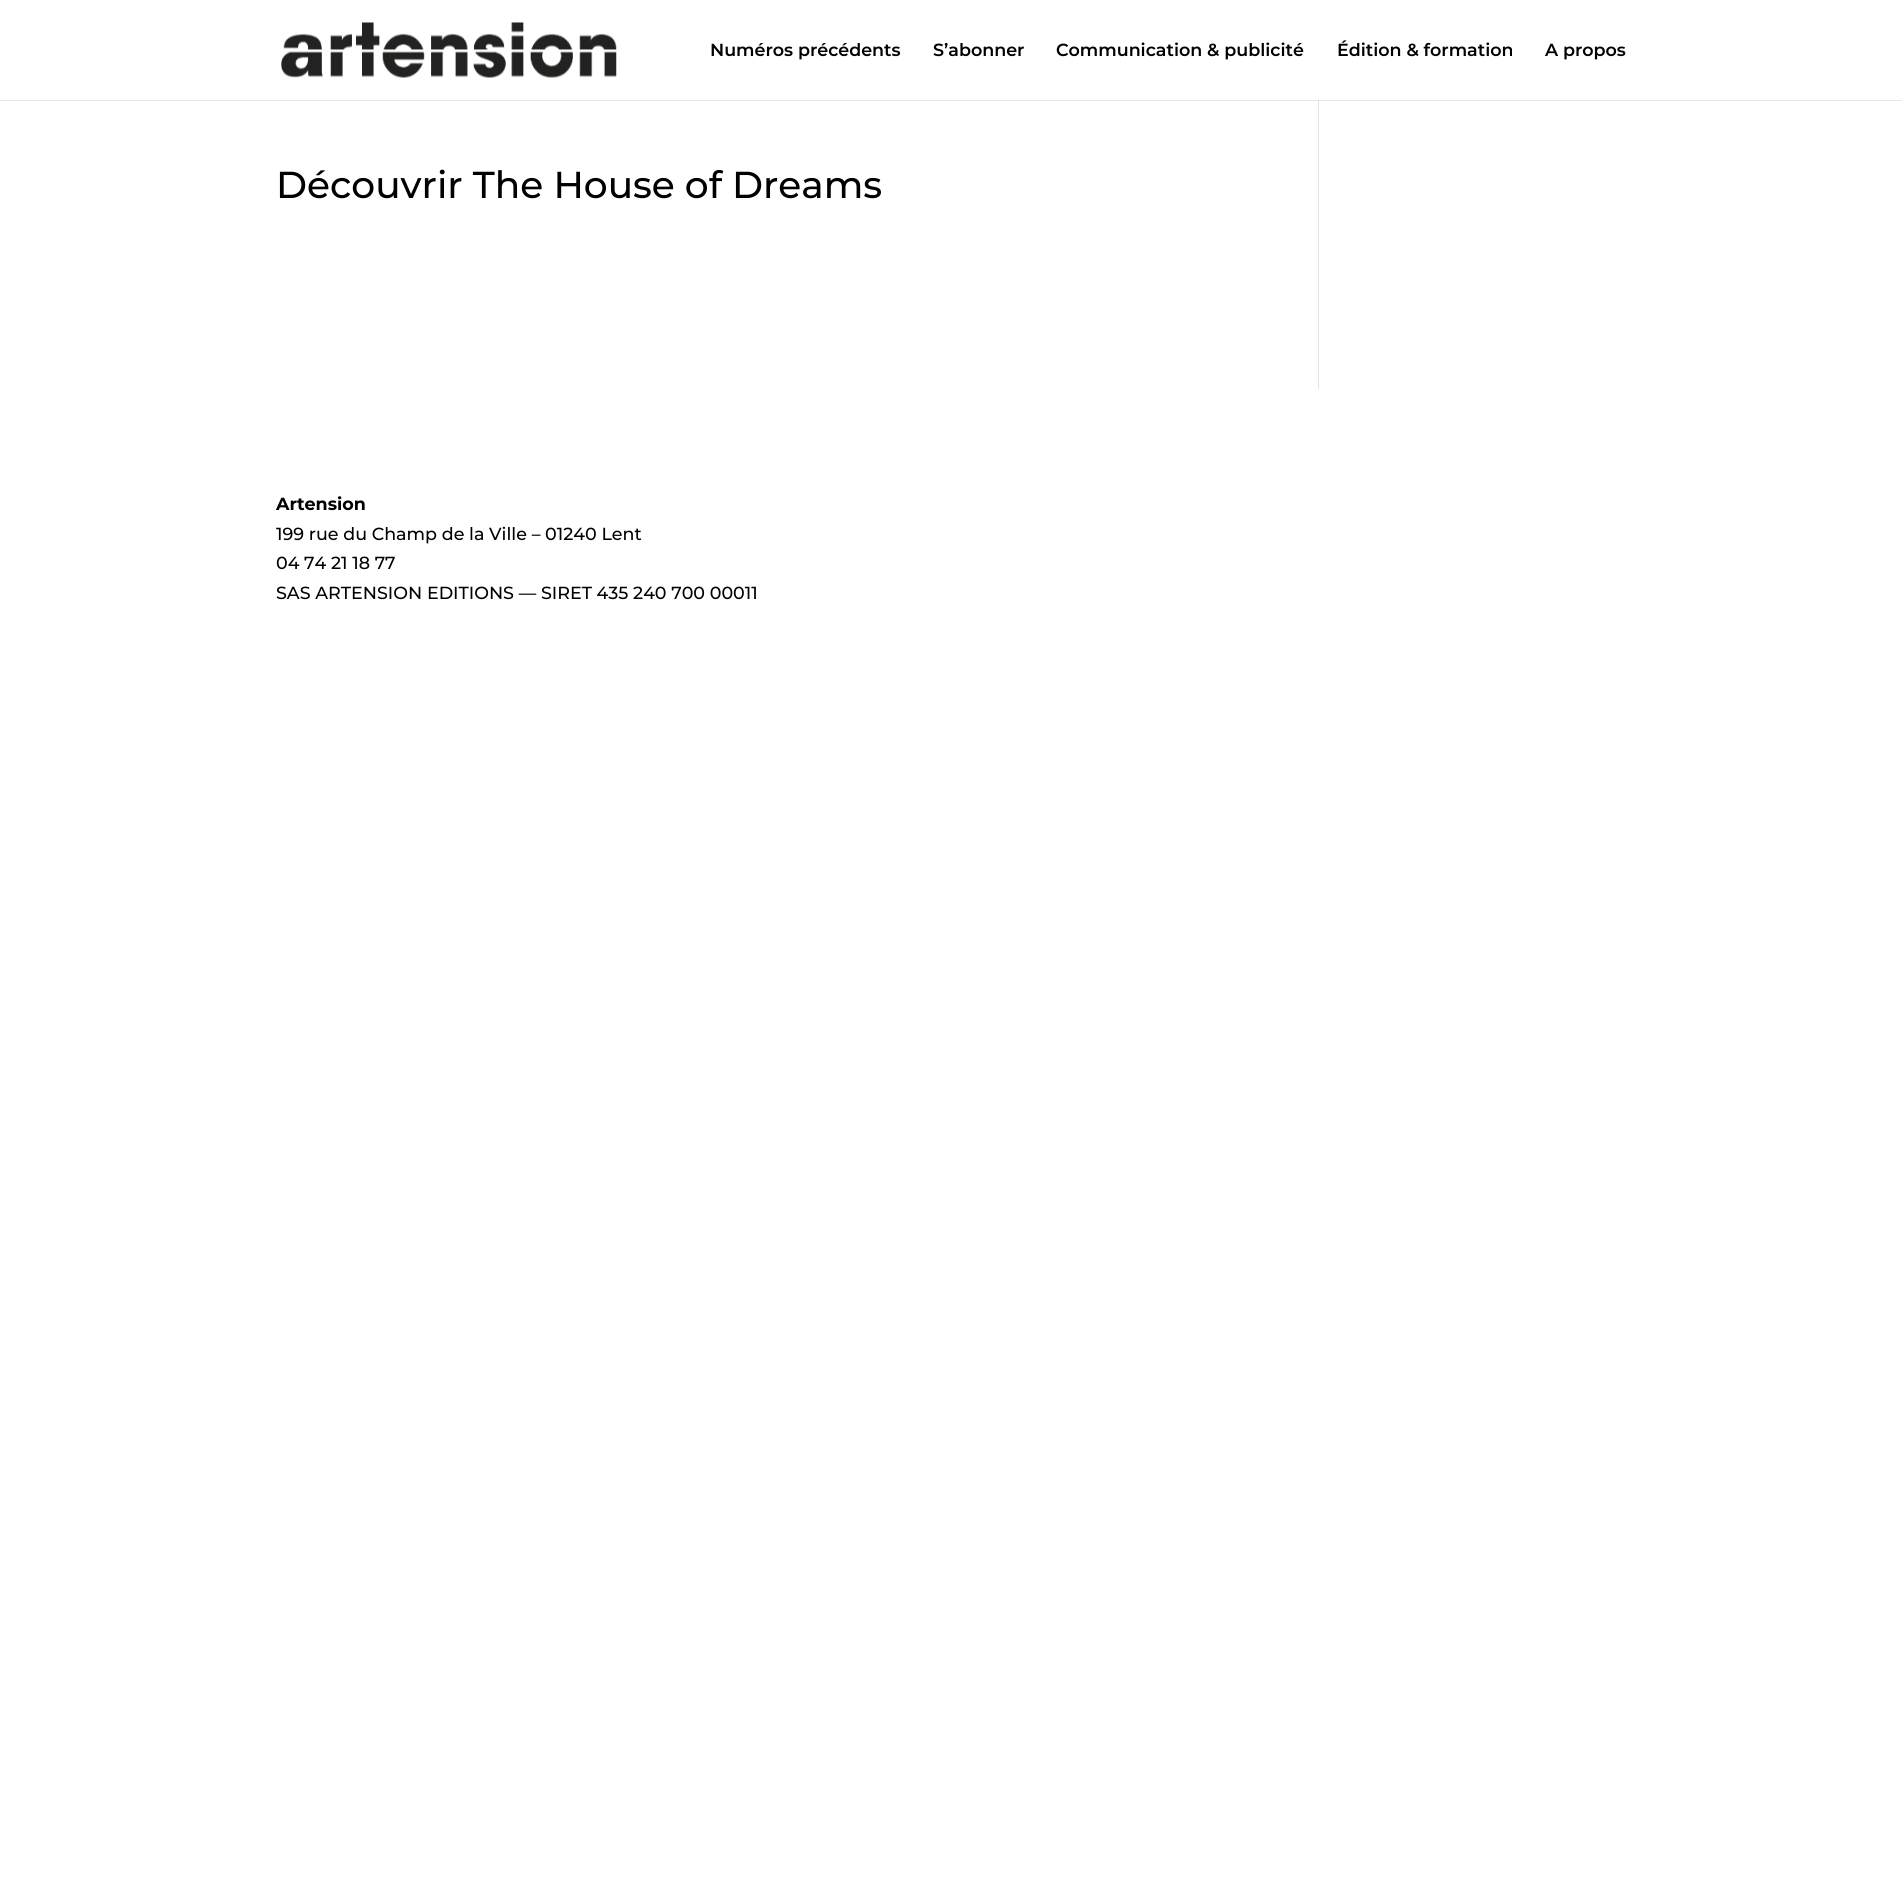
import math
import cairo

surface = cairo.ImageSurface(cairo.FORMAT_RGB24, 1902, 1877)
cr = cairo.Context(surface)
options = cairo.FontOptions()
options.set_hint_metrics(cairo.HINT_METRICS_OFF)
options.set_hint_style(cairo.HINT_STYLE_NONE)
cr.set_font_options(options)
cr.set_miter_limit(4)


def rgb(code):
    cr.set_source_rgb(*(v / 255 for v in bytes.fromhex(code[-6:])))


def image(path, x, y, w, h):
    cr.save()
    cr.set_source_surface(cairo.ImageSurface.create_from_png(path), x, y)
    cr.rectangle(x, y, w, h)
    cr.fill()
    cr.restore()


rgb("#ffffff")
cr.paint()
rgb("#e2e2e2")
cr.rectangle(1318, 94, 1, 295)
cr.fill()
cr.set_source_rgba(0, 0, 0, 0.1)
cr.new_path()
cr.move_to(0, 100)
cr.line_to(0, 101)
cr.line_to(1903, 101)
cr.line_to(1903, 1)
cr.line_to(1902, 1)
cr.line_to(1902, 100)
cr.close_path()
cr.fill()
rgb("#ffffff")
cr.rectangle(1318, 94, 1, 6)
cr.fill()
image("img/1.png", 281, 22, 336, 56)
cr.select_font_face("Montserrat SemiBold")
cr.set_font_size(17.5)
rgb("#000000")
for x, y, s in [
    (710, 56, "Numéros précédents"),
    (933, 56, "S’abonner"),
    (1056, 56, "Communication & publicité"),
    (1337, 56, "Édition & formation"),
    (1545, 56, "A propos"),
]:
    cr.move_to(x, y)
    cr.show_text(s)
cr.select_font_face("Montserrat Medium")
cr.set_font_size(37.5)
cr.move_to(276, 198)
cr.show_text("Découvrir The House of Dreams")
cr.select_font_face("Montserrat", cairo.FONT_SLANT_NORMAL, cairo.FONT_WEIGHT_BOLD)
cr.set_font_size(17.5)
cr.move_to(276, 510)
cr.show_text("Artension")
cr.select_font_face("Montserrat Medium")
for x, y, s in [
    (276, 540, "199 rue du Champ de la Ville – 01240 Lent"),
    (276, 569, "04 74 21 18 77"),
    (276, 599, "SAS ARTENSION EDITIONS — SIRET 435 240 700 00011"),
]:
    cr.move_to(x, y)
    cr.show_text(s)
surface.write_to_png("page.png")
